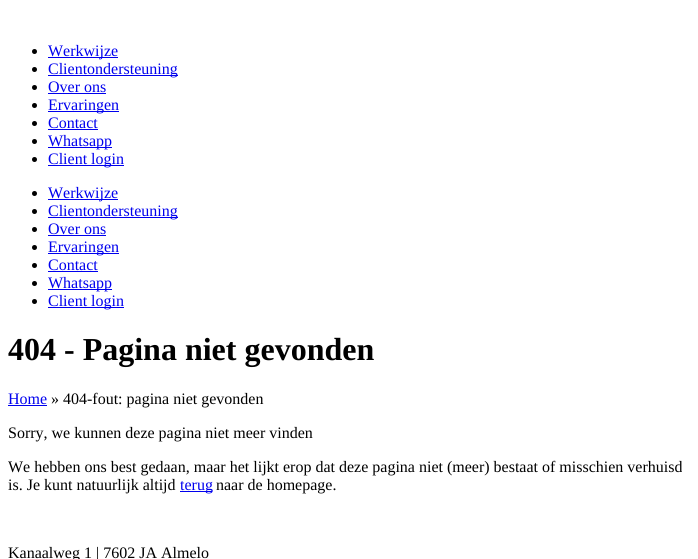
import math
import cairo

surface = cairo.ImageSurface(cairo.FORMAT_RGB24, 698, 559)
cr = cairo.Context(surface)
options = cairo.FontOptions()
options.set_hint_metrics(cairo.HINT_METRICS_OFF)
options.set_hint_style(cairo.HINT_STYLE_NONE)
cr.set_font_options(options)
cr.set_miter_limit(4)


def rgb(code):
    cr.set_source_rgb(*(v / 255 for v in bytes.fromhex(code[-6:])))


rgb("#ffffff")
cr.paint()
rgb("#000000")
cr.arc(34.5, 51.5, 2.5, 0, 2 * math.pi)
cr.fill()
rgb("#0000ee")
cr.rectangle(48, 57, 70, 1)
cr.fill()
rgb("#000000")
cr.arc(34.5, 69.5, 2.5, 0, 2 * math.pi)
cr.fill()
rgb("#0000ee")
cr.rectangle(48, 75, 130, 1)
cr.fill()
rgb("#000000")
cr.arc(34.5, 87.5, 2.5, 0, 2 * math.pi)
cr.fill()
rgb("#0000ee")
cr.rectangle(48, 93, 58, 1)
cr.fill()
rgb("#000000")
cr.arc(34.5, 105.5, 2.5, 0, 2 * math.pi)
cr.fill()
rgb("#0000ee")
cr.rectangle(48, 111, 71, 1)
cr.fill()
rgb("#000000")
cr.arc(34.5, 123.5, 2.5, 0, 2 * math.pi)
cr.fill()
rgb("#0000ee")
cr.rectangle(48, 129, 50, 1)
cr.fill()
rgb("#000000")
cr.arc(34.5, 141.5, 2.5, 0, 2 * math.pi)
cr.fill()
rgb("#0000ee")
cr.rectangle(48, 147, 64, 1)
cr.fill()
rgb("#000000")
cr.arc(34.5, 159.5, 2.5, 0, 2 * math.pi)
cr.fill()
rgb("#0000ee")
cr.rectangle(48, 165, 76, 1)
cr.fill()
rgb("#000000")
cr.arc(34.5, 193.5, 2.5, 0, 2 * math.pi)
cr.fill()
rgb("#0000ee")
cr.rectangle(48, 199, 70, 1)
cr.fill()
rgb("#000000")
cr.arc(34.5, 211.5, 2.5, 0, 2 * math.pi)
cr.fill()
rgb("#0000ee")
cr.rectangle(48, 217, 130, 1)
cr.fill()
rgb("#000000")
cr.arc(34.5, 229.5, 2.5, 0, 2 * math.pi)
cr.fill()
rgb("#0000ee")
cr.rectangle(48, 235, 58, 1)
cr.fill()
rgb("#000000")
cr.arc(34.5, 247.5, 2.5, 0, 2 * math.pi)
cr.fill()
rgb("#0000ee")
cr.rectangle(48, 253, 71, 1)
cr.fill()
rgb("#000000")
cr.arc(34.5, 265.5, 2.5, 0, 2 * math.pi)
cr.fill()
rgb("#0000ee")
cr.rectangle(48, 271, 50, 1)
cr.fill()
rgb("#000000")
cr.arc(34.5, 283.5, 2.5, 0, 2 * math.pi)
cr.fill()
rgb("#0000ee")
cr.rectangle(48, 289, 64, 1)
cr.fill()
rgb("#000000")
cr.arc(34.5, 301.5, 2.5, 0, 2 * math.pi)
cr.fill()
for x, y, w, h, color in [
    (48, 307, 76, 1, "#0000ee"),
    (8, 405, 39, 1, "#0000ee"),
    (180, 491, 32, 1, "#0000ee"),
]:
    rgb(color)
    cr.rectangle(x, y, w, h)
    cr.fill()
cr.select_font_face("Liberation Serif")
cr.set_font_size(16)
for x, y, s in [
    (48, 56, "Werkwijze"),
    (48, 74, "Clientondersteuning"),
    (48, 92, "Over ons"),
    (48, 110, "Ervaringen"),
    (48, 128, "Contact"),
    (48, 146, "Whatsapp"),
    (48, 164, "Client login"),
    (48, 198, "Werkwijze"),
    (48, 216, "Clientondersteuning"),
    (48, 234, "Over ons"),
    (48, 252, "Ervaringen"),
    (48, 270, "Contact"),
    (48, 288, "Whatsapp"),
    (48, 306, "Client login"),
]:
    cr.move_to(x, y)
    cr.show_text(s)
cr.select_font_face("Liberation Serif", cairo.FONT_SLANT_NORMAL, cairo.FONT_WEIGHT_BOLD)
cr.set_font_size(32)
rgb("#000000")
cr.move_to(8, 360)
cr.show_text("404 - Pagina niet gevonden")
cr.select_font_face("Liberation Serif")
cr.set_font_size(16)
rgb("#0000ee")
cr.move_to(8, 404)
cr.show_text("Home")
rgb("#000000")
for x, y, s in [
    (51, 404, "» 404-fout: pagina niet gevonden"),
    (8, 438, "Sorry, we kunnen deze pagina niet meer vinden"),
    (8, 472, "We hebben ons best gedaan, maar het lijkt erop dat deze pagina niet (meer) bestaat of misschien verhuisd"),
    (8, 490, "is. Je kunt natuurlijk altijd"),
]:
    cr.move_to(x, y)
    cr.show_text(s)
rgb("#0000ee")
cr.move_to(180, 490)
cr.show_text("terug")
rgb("#000000")
cr.move_to(216, 490)
cr.show_text("naar de homepage.")
cr.move_to(8, 558)
cr.show_text("Kanaalweg 1 | 7602 JA Almelo")
surface.write_to_png("page.png")
